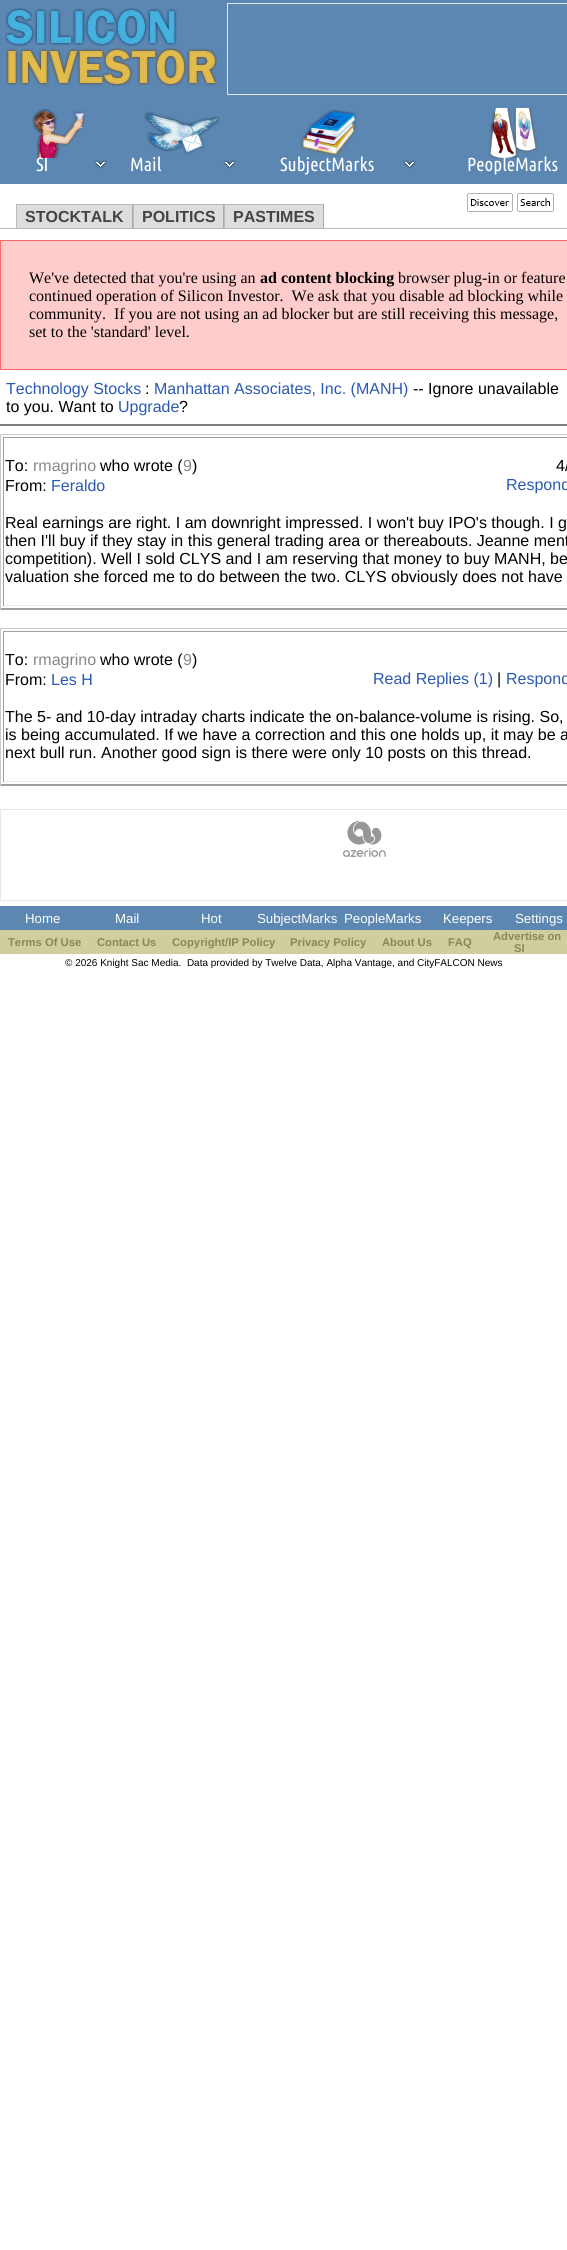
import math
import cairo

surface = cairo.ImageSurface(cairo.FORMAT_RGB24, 567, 2250)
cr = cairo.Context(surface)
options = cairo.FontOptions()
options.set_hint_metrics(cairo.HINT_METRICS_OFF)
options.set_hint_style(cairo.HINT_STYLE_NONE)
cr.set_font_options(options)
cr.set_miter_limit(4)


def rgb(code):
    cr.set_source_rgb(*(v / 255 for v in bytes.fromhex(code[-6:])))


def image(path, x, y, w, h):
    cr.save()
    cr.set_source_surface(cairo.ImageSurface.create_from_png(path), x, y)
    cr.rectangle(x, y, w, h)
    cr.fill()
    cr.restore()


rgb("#ffffff")
cr.paint()
rgb("#5c87b2")
cr.rectangle(0, 0, 567, 184)
cr.fill()
image("img/1.png", 5, 8, 213, 79)
cr.rectangle(227.5, 3.5, 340, 91)
rgb("#e6e6e6")
cr.set_line_width(1)
cr.stroke()
image("img/2.png", 32, 108, 54, 50)
image("img/3.png", 94, 160, 13, 9)
image("img/4.png", 144, 111, 76, 44)
image("img/3.png", 223, 160, 13, 9)
image("img/5.png", 300, 109, 57, 48)
image("img/3.png", 403, 160, 13, 9)
image("img/6.png", 488, 108, 50, 50)
image("img/7.png", 467, 193, 46, 19)
image("img/8.png", 517, 193, 37, 19)
for x, y, w, h, color in [
    (17, 205, 115, 23, "#dddddd"),
    (16, 204, 308, 1, "#bbbbbb"),
    (132, 204, 1, 25, "#aaaaaa"),
    (16, 204, 1, 25, "#bbbbbb"),
    (134, 205, 89, 23, "#dddddd"),
    (223, 204, 1, 25, "#aaaaaa"),
    (133, 204, 1, 25, "#bbbbbb"),
    (225, 205, 98, 23, "#dddddd"),
    (323, 204, 1, 25, "#aaaaaa"),
    (224, 204, 1, 25, "#bbbbbb"),
    (0, 228, 567, 1, "#bbbbbb"),
]:
    rgb(color)
    cr.rectangle(x, y, w, h)
    cr.fill()
rgb("#ffcccc")
cr.rectangle(0.5, 240.5, 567, 129)
cr.fill_preserve()
rgb("#ff6666")
cr.stroke()
rgb("#808080")
cr.rectangle(0, 424, 567, 2)
cr.fill()
rgb("#cbcbcb")
cr.new_path()
cr.move_to(0, 434)
cr.line_to(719, 434)
cr.line_to(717, 435)
cr.line_to(1, 435)
cr.close_path()
cr.fill()
rgb("#9f9f9f")
cr.new_path()
cr.move_to(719, 610)
cr.line_to(0, 610)
cr.line_to(1, 608)
cr.line_to(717, 608)
cr.close_path()
cr.fill()
rgb("#cbcbcb")
cr.new_path()
cr.move_to(0, 610)
cr.line_to(0, 434)
cr.line_to(1, 435)
cr.line_to(1, 608)
cr.close_path()
cr.fill()
for x, y, w, h, color in [
    (3, 437, 564, 1, "#9f9f9f"),
    (3, 605, 564, 1, "#ebebeb"),
    (3, 437, 1, 169, "#9f9f9f"),
]:
    rgb(color)
    cr.rectangle(x, y, w, h)
    cr.fill()
rgb("#cbcbcb")
cr.new_path()
cr.move_to(0, 628)
cr.line_to(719, 628)
cr.line_to(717, 629)
cr.line_to(1, 629)
cr.close_path()
cr.fill()
rgb("#9f9f9f")
cr.new_path()
cr.move_to(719, 786)
cr.line_to(0, 786)
cr.line_to(1, 784)
cr.line_to(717, 784)
cr.close_path()
cr.fill()
rgb("#cbcbcb")
cr.new_path()
cr.move_to(0, 786)
cr.line_to(0, 628)
cr.line_to(1, 629)
cr.line_to(1, 784)
cr.close_path()
cr.fill()
for x, y, w, h, color in [
    (3, 631, 564, 1, "#9f9f9f"),
    (3, 781, 564, 1, "#ebebeb"),
    (3, 631, 1, 151, "#9f9f9f"),
]:
    rgb(color)
    cr.rectangle(x, y, w, h)
    cr.fill()
cr.rectangle(0.5, 809.5, 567, 91)
rgb("#e6e6e6")
cr.stroke()
image("img/9.png", 343, 821, 43, 36)
rgb("#5c87b2")
cr.rectangle(0, 906, 567, 24)
cr.fill()
rgb("#d0ce9d")
cr.rectangle(0, 930, 567, 24)
cr.fill()
cr.select_font_face("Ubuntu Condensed")
cr.set_font_size(19)
rgb("#ffffff")
for x, y, s in [
    (36, 171, "SI"),
    (130, 171, "Mail"),
    (280, 171, "SubjectMarks"),
    (467, 171, "PeopleMarks"),
]:
    cr.move_to(x, y)
    cr.show_text(s)
cr.select_font_face("Liberation Sans", cairo.FONT_SLANT_NORMAL, cairo.FONT_WEIGHT_BOLD)
cr.set_font_size(16)
rgb("#444444")
for x, y, s in [
    (25, 222, "STOCKTALK"),
    (142, 222, "POLITICS"),
    (233, 222, "PASTIMES"),
]:
    cr.move_to(x, y)
    cr.show_text(s)
cr.select_font_face("Liberation Serif")
rgb("#000000")
cr.move_to(29, 283)
cr.show_text("We've detected that you're using an")
cr.select_font_face("Liberation Serif", cairo.FONT_SLANT_NORMAL, cairo.FONT_WEIGHT_BOLD)
cr.move_to(260, 283)
cr.show_text("ad content blocking")
cr.select_font_face("Liberation Serif")
for x, y, s in [
    (398, 283, "browser plug-in or feature"),
    (29, 301, "continued operation of Silicon Investor.  We ask that you disable ad blocking while"),
    (29, 319, "community.  If you are not using an ad blocker but are still receiving this message,"),
    (29, 337, "set to the 'standard' level."),
]:
    cr.move_to(x, y)
    cr.show_text(s)
cr.select_font_face("Liberation Sans")
rgb("#2b59b2")
cr.move_to(6, 394)
cr.show_text("Technology Stocks")
rgb("#000000")
cr.move_to(145, 394)
cr.show_text(":")
rgb("#2b59b2")
cr.move_to(154, 394)
cr.show_text("Manhattan Associates, Inc. (MANH)")
rgb("#000000")
cr.move_to(413, 394)
cr.show_text("-- Ignore unavailable")
cr.move_to(6, 412)
cr.show_text("to you. Want to")
rgb("#2b59b2")
cr.move_to(118, 412)
cr.show_text("Upgrade")
rgb("#000000")
cr.move_to(179, 412)
cr.show_text("?")
cr.move_to(5, 471)
cr.show_text("To:")
rgb("#888888")
cr.move_to(33, 471)
cr.show_text("rmagrino")
rgb("#000000")
cr.move_to(100, 471)
cr.show_text("who wrote (")
rgb("#888888")
cr.move_to(183, 471)
cr.show_text("9")
rgb("#000000")
for x, y, s in [
    (192, 471, ")"),
    (556, 471, "4/"),
    (5, 491, "From:"),
]:
    cr.move_to(x, y)
    cr.show_text(s)
rgb("#2b59b2")
cr.move_to(51, 491)
cr.show_text("Feraldo")
cr.move_to(506, 490)
cr.show_text("Respond")
rgb("#000000")
for x, y, s in [
    (5, 528, "Real earnings are right. I am downright impressed. I won't buy IPO's though. I g"),
    (5, 546, "then I'll buy if they stay in this general trading area or thereabouts. Jeanne ment"),
    (5, 564, "competition). Well I sold CLYS and I am reserving that money to buy MANH, be"),
    (5, 582, "valuation she forced me to do between the two. CLYS obviously does not have"),
    (5, 665, "To:"),
]:
    cr.move_to(x, y)
    cr.show_text(s)
rgb("#888888")
cr.move_to(33, 665)
cr.show_text("rmagrino")
rgb("#000000")
cr.move_to(100, 665)
cr.show_text("who wrote (")
rgb("#888888")
cr.move_to(183, 665)
cr.show_text("9")
rgb("#000000")
cr.move_to(192, 665)
cr.show_text(")")
cr.move_to(5, 685)
cr.show_text("From:")
rgb("#2b59b2")
cr.move_to(51, 685)
cr.show_text("Les H")
cr.move_to(373, 684)
cr.show_text("Read Replies (1)")
rgb("#000000")
cr.move_to(497, 684)
cr.show_text("|")
rgb("#2b59b2")
cr.move_to(506, 684)
cr.show_text("Respond")
rgb("#000000")
for x, y, s in [
    (5, 722, "The 5- and 10-day intraday charts indicate the on-balance-volume is rising. So,"),
    (5, 740, "is being accumulated. If we have a correction and this one holds up, it may be a"),
    (5, 758, "next bull run. Another good sign is there were only 10 posts on this thread."),
]:
    cr.move_to(x, y)
    cr.show_text(s)
cr.set_font_size(13.25)
rgb("#ffffff")
for x, y, s in [
    (25, 923, "Home"),
    (115, 923, "Mail"),
    (201, 923, "Hot"),
    (257, 923, "SubjectMarks"),
    (344, 923, "PeopleMarks"),
    (443, 923, "Keepers"),
    (515, 923, "Settings"),
]:
    cr.move_to(x, y)
    cr.show_text(s)
cr.select_font_face("Liberation Sans", cairo.FONT_SLANT_NORMAL, cairo.FONT_WEIGHT_BOLD)
cr.set_font_size(11.25)
rgb("#888855")
for x, y, s in [
    (8, 946, "Terms Of Use"),
    (97, 946, "Contact Us"),
    (172, 946, "Copyright/IP Policy"),
    (290, 946, "Privacy Policy"),
    (382, 946, "About Us"),
    (448, 946, "FAQ"),
    (493, 940, "Advertise on"),
    (514, 952, "SI"),
]:
    cr.move_to(x, y)
    cr.show_text(s)
cr.select_font_face("Liberation Sans")
cr.set_font_size(10)
rgb("#000000")
cr.move_to(65, 966)
cr.show_text("© 2026 Knight Sac Media.  Data provided by Twelve Data, Alpha Vantage, and CityFALCON News")
surface.write_to_png("page.png")
